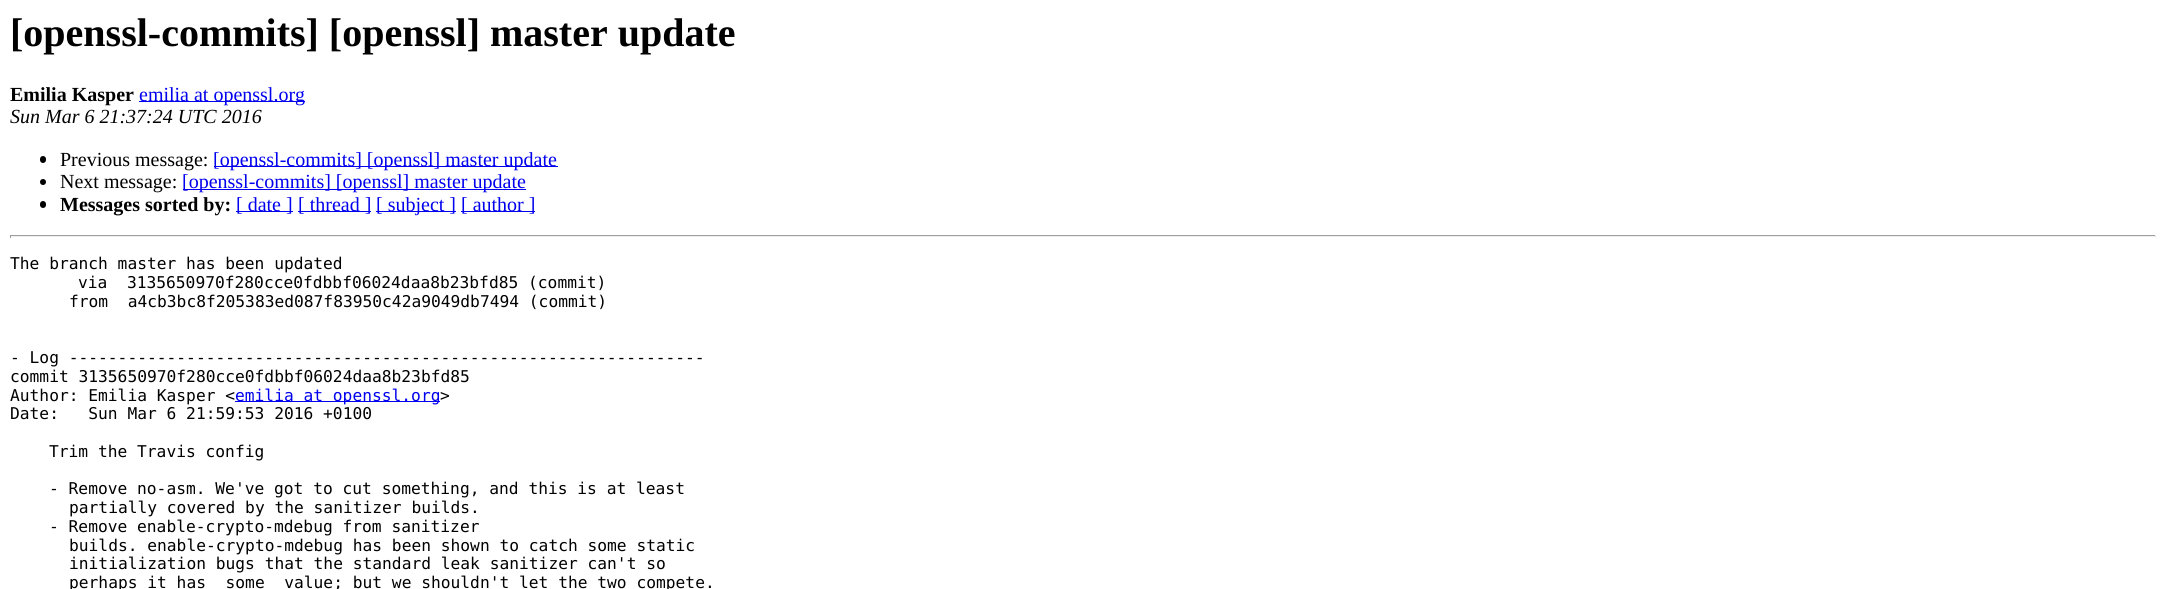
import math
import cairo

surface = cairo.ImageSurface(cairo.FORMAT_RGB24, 2166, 589)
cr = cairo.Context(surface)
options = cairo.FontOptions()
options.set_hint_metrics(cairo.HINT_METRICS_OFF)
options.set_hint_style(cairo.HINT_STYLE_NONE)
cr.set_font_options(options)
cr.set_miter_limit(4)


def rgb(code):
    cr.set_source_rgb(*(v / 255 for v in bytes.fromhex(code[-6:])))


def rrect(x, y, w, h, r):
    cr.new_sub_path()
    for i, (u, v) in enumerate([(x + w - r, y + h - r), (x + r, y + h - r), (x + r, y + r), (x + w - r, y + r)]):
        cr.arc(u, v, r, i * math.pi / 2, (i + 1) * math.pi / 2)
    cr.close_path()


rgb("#ffffff")
cr.paint()
rgb("#0000ee")
cr.rectangle(139, 101, 166, 1)
cr.fill()
rgb("#000000")
rrect(40, 156, 6, 7, 3)
cr.fill()
rgb("#0000ee")
cr.rectangle(214, 166, 344, 1)
cr.fill()
rgb("#000000")
cr.arc(43, 182, 3, 0, 2 * math.pi)
cr.fill()
rgb("#0000ee")
cr.rectangle(183, 189, 343, 1)
cr.fill()
rgb("#000000")
rrect(40, 201, 6, 7, 3)
cr.fill()
for x, y, w, h, color in [
    (236, 211, 57, 1, "#0000ee"),
    (298, 211, 73, 1, "#0000ee"),
    (376, 211, 80, 1, "#0000ee"),
    (461, 211, 74, 1, "#0000ee"),
    (10, 235, 2146, 1, "#9f9f9f"),
    (2155, 235, 1, 3, "#eeeeee"),
    (10, 236, 2146, 1, "#eeeeee"),
    (10, 235, 1, 3, "#9f9f9f"),
    (235, 401, 205, 1, "#0000ee"),
]:
    rgb(color)
    cr.rectangle(x, y, w, h)
    cr.fill()
cr.select_font_face("Liberation Serif", cairo.FONT_SLANT_NORMAL, cairo.FONT_WEIGHT_BOLD)
cr.set_font_size(40)
rgb("#000000")
cr.move_to(10, 46)
cr.show_text("[openssl-commits] [openssl] master update")
cr.set_font_size(20)
cr.move_to(10, 101)
cr.show_text("Emilia Kasper")
cr.select_font_face("Liberation Serif")
rgb("#0000ee")
cr.move_to(139, 101)
cr.show_text("emilia at openssl.org")
cr.select_font_face("Liberation Serif", cairo.FONT_SLANT_ITALIC)
rgb("#000000")
cr.move_to(10, 123)
cr.show_text("Sun Mar 6 21:37:24 UTC 2016")
cr.select_font_face("Liberation Serif")
cr.move_to(60, 166)
cr.show_text("Previous message:")
rgb("#0000ee")
cr.move_to(213, 166)
cr.show_text("[openssl-commits] [openssl] master update")
rgb("#000000")
cr.move_to(60, 188)
cr.show_text("Next message:")
rgb("#0000ee")
cr.move_to(182, 188)
cr.show_text("[openssl-commits] [openssl] master update")
cr.select_font_face("Liberation Serif", cairo.FONT_SLANT_NORMAL, cairo.FONT_WEIGHT_BOLD)
rgb("#000000")
cr.move_to(60, 211)
cr.show_text("Messages sorted by:")
cr.select_font_face("Liberation Serif")
rgb("#0000ee")
for x, y, s in [
    (236, 211, "[ date ]"),
    (298, 211, "[ thread ]"),
    (376, 211, "[ subject ]"),
    (461, 211, "[ author ]"),
]:
    cr.move_to(x, y)
    cr.show_text(s)
cr.select_font_face("DejaVu Sans Mono")
cr.set_font_size(16.25)
rgb("#000000")
for x, y, s in [
    (10, 269, "The branch master has been updated"),
    (78, 288, "via  3135650970f280cce0fdbbf06024daa8b23bfd85 (commit)"),
    (69, 307, "from  a4cb3bc8f205383ed087f83950c42a9049db7494 (commit)"),
    (10, 363, "- Log -----------------------------------------------------------------"),
    (10, 382, "commit 3135650970f280cce0fdbbf06024daa8b23bfd85"),
    (10, 401, "Author: Emilia Kasper <"),
]:
    cr.move_to(x, y)
    cr.show_text(s)
rgb("#0000ee")
cr.move_to(235, 401)
cr.show_text("emilia at openssl.org")
rgb("#000000")
for x, y, s in [
    (440, 401, ">"),
    (10, 419, "Date:   Sun Mar 6 21:59:53 2016 +0100"),
    (49, 457, "Trim the Travis config"),
    (49, 494, "- Remove no-asm. We've got to cut something, and this is at least"),
    (69, 513, "partially covered by the sanitizer builds."),
    (49, 532, "- Remove enable-crypto-mdebug from sanitizer"),
    (69, 551, "builds. enable-crypto-mdebug has been shown to catch some static"),
    (69, 569, "initialization bugs that the standard leak sanitizer can't so"),
    (69, 588, "perhaps it has _some_ value; but we shouldn't let the two compete."),
]:
    cr.move_to(x, y)
    cr.show_text(s)
surface.write_to_png("page.png")
